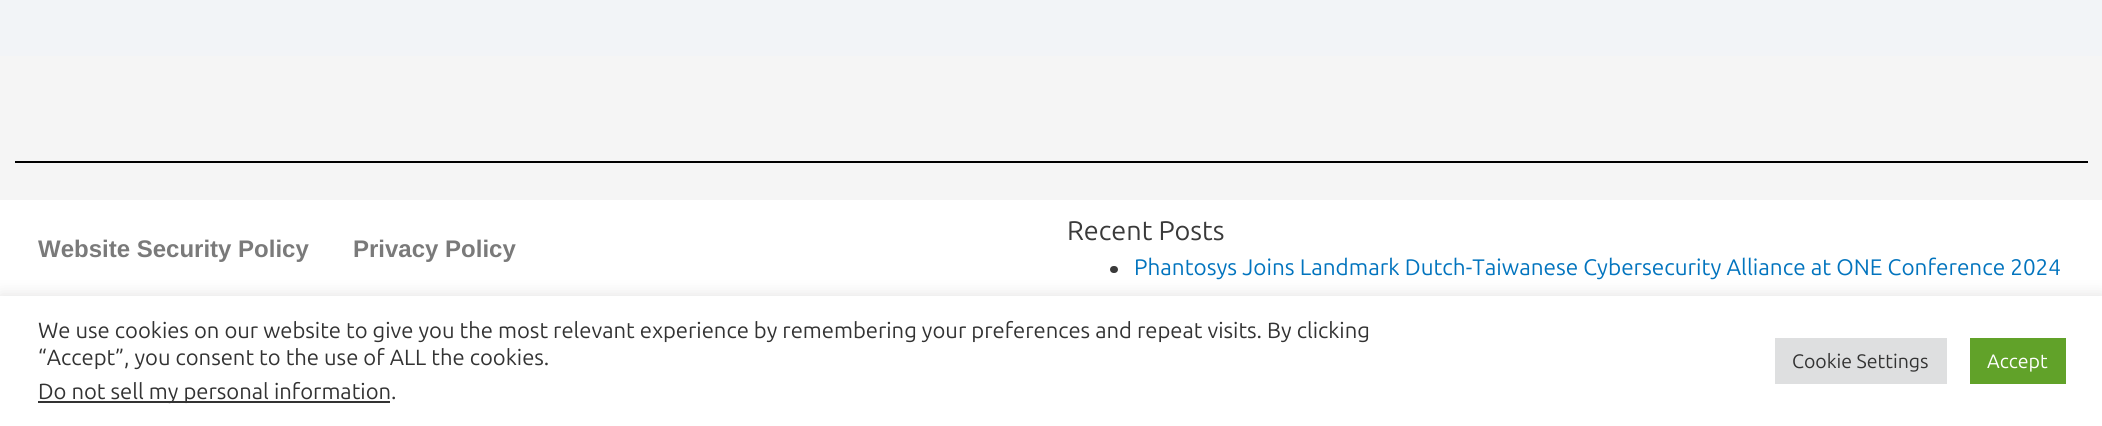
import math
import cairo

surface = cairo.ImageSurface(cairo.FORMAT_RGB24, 2102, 426)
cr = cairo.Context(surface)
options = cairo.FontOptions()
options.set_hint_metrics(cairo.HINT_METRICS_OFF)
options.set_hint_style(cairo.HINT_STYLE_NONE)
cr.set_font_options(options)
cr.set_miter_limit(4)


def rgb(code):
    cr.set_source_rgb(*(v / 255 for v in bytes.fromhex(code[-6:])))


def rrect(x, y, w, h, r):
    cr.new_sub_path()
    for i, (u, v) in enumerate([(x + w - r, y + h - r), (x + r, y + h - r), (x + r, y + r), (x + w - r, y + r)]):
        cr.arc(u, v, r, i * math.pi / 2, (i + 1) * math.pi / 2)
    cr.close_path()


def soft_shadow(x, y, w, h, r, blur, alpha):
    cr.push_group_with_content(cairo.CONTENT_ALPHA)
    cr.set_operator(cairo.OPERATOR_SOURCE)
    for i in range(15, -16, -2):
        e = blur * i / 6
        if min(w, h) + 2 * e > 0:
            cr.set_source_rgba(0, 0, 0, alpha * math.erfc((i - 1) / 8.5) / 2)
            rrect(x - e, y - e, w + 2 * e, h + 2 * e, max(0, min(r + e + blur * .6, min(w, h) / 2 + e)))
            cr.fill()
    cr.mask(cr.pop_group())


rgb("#f5f5f5")
cr.paint()
for x, y, w, h, color in [
    (0, 0, 2102, 56, "#f2f4f7"),
    (15, 161, 2073, 2, "#000000"),
    (0, 200, 2102, 96, "#ffffff"),
]:
    rgb(color)
    cr.rectangle(x, y, w, h)
    cr.fill()
rgb("#3a3a3a")
rrect(1110, 266, 8, 7, 3.5)
cr.fill()
rgb("#acabab")
soft_shadow(0, 294, 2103, 131, 0, 7.5, 0.3)
for x, y, w, h, color in [
    (0, 296, 2102, 130, "#ffffff"),
    (38, 401, 352, 2, "#333333"),
    (1775, 338, 172, 46, "#dedfe0"),
    (1970, 338, 96, 46, "#61a229"),
]:
    rgb(color)
    cr.rectangle(x, y, w, h)
    cr.fill()
cr.select_font_face("Liberation Sans", cairo.FONT_SLANT_NORMAL, cairo.FONT_WEIGHT_BOLD)
cr.set_font_size(24)
rgb("#7a7a7a")
cr.move_to(38, 257)
cr.show_text("Website Security Policy")
cr.move_to(353, 257)
cr.show_text("Privacy Policy")
cr.select_font_face("Ubuntu")
cr.set_font_size(27)
rgb("#3a3a3a")
cr.move_to(1067, 240)
cr.show_text("Recent Posts")
cr.set_font_size(22.5)
rgb("#0274be")
cr.move_to(1134, 275)
cr.show_text("Phantosys Joins Landmark Dutch-Taiwanese Cybersecurity Alliance at ONE Conference 2024")
cr.set_font_size(22)
rgb("#333333")
for x, y, s in [
    (38, 338, "We use cookies on our website to give you the most relevant experience by remembering your preferences and repeat visits. By clicking"),
    (38, 365, "“Accept”, you consent to the use of ALL the cookies."),
    (38, 399, "Do not sell my personal information."),
]:
    cr.move_to(x, y)
    cr.show_text(s)
cr.set_font_size(19.5)
cr.move_to(1792, 368)
cr.show_text("Cookie Settings")
rgb("#ffffff")
cr.move_to(1987, 368)
cr.show_text("Accept")
surface.write_to_png("page.png")
